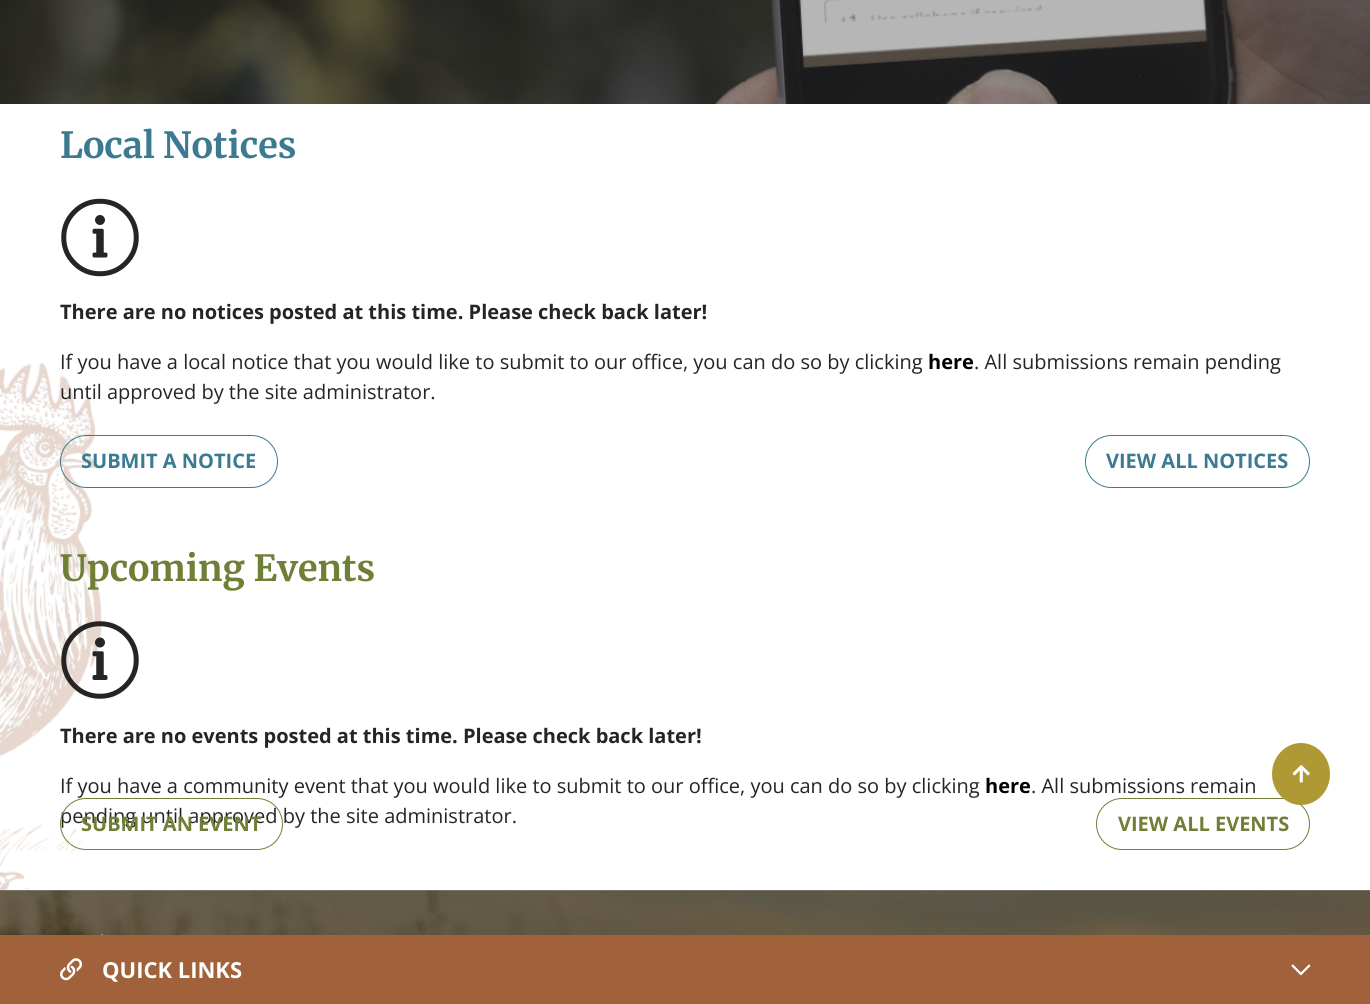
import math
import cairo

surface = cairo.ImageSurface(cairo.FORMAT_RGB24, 1370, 1004)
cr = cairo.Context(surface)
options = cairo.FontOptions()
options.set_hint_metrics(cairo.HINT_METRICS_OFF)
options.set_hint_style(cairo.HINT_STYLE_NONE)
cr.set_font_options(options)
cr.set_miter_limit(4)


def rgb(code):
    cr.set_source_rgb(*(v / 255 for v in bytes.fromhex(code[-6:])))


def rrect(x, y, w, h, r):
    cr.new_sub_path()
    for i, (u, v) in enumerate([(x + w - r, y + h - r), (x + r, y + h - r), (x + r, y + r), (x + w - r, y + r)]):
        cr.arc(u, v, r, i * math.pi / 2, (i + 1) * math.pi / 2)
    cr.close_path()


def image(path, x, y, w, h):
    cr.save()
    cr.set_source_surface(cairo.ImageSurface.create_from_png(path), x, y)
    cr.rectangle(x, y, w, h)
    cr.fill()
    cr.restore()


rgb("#ffffff")
cr.paint()
image("img/1.png", 0, 0, 1370, 104)
image("img/2.png", 0, 362, 102, 529)
image("img/3.png", 61, 198, 78, 79)
rrect(60.5, 435.5, 217, 52, 26)
rgb("#3c7a92")
cr.set_line_width(1)
cr.stroke()
rrect(1085.5, 435.5, 224, 52, 26)
cr.stroke()
image("img/4.png", 61, 621, 78, 78)
rrect(1096.5, 798.5, 213, 51, 25.5)
rgb("#707f36")
cr.stroke()
rgb("#af9935")
cr.new_path()
cr.move_to(1301, 743)
cr.curve_to(1317, 743, 1330, 757, 1330, 774)
cr.curve_to(1330, 791, 1317, 805, 1301, 805)
cr.curve_to(1285, 805, 1272, 791, 1272, 774)
cr.curve_to(1272, 757, 1285, 743, 1301, 743)
cr.close_path()
cr.fill()
image("img/5.png", 1292, 765, 18, 18)
image("img/6.png", 0, 890, 1370, 45)
cr.set_source_rgba(0, 0, 0, 0.25)
cr.rectangle(0, 890, 1370, 45)
cr.fill()
image("img/7.png", 101, 934, 2, 1)
rgb("#a1613b")
cr.rectangle(0, 935, 1370, 69)
cr.fill()
image("img/8.png", 60, 958, 22, 23)
image("img/9.png", 1291, 964, 20, 12)
cr.select_font_face("Merriweather Light")
cr.set_font_size(36)
rgb("#3c7a92")
cr.move_to(60, 158)
cr.show_text("Local Notices")
cr.select_font_face("Open Sans", cairo.FONT_SLANT_NORMAL, cairo.FONT_WEIGHT_BOLD)
cr.set_font_size(20)
rgb("#252525")
cr.move_to(60, 319)
cr.show_text("There are no notices posted at this time. Please check back later!")
cr.select_font_face("Open Sans")
cr.move_to(60, 369)
cr.show_text("If you have a local notice that you would like to submit to our office, you can do so by clicking")
cr.select_font_face("Open Sans", cairo.FONT_SLANT_NORMAL, cairo.FONT_WEIGHT_BOLD)
rgb("#000000")
cr.move_to(928, 369)
cr.show_text("here")
cr.select_font_face("Open Sans")
rgb("#252525")
cr.move_to(974, 369)
cr.show_text(". All submissions remain pending")
cr.move_to(60, 399)
cr.show_text("until approved by the site administrator.")
cr.select_font_face("Open Sans", cairo.FONT_SLANT_NORMAL, cairo.FONT_WEIGHT_BOLD)
rgb("#3c7a92")
cr.move_to(81, 468)
cr.show_text("SUBMIT A NOTICE")
cr.move_to(1106, 468)
cr.show_text("VIEW ALL NOTICES")
cr.select_font_face("Merriweather Light")
cr.set_font_size(36)
rgb("#707f36")
cr.move_to(60, 581)
cr.show_text("Upcoming Events")
cr.select_font_face("Open Sans", cairo.FONT_SLANT_NORMAL, cairo.FONT_WEIGHT_BOLD)
cr.set_font_size(20)
rgb("#252525")
cr.move_to(60, 743)
cr.show_text("There are no events posted at this time. Please check back later!")
cr.select_font_face("Open Sans")
cr.move_to(60, 793)
cr.show_text("If you have a community event that you would like to submit to our office, you can do so by clicking")
cr.select_font_face("Open Sans", cairo.FONT_SLANT_NORMAL, cairo.FONT_WEIGHT_BOLD)
rgb("#000000")
cr.move_to(985, 793)
cr.show_text("here")
cr.select_font_face("Open Sans")
rgb("#252525")
cr.move_to(1031, 793)
cr.show_text(". All submissions remain")
cr.move_to(60, 823)
cr.show_text("pending until approved by the site administrator.")
rrect(60.5, 798.5, 222, 51, 25.5)
rgb("#707f36")
cr.stroke()
cr.select_font_face("Open Sans", cairo.FONT_SLANT_NORMAL, cairo.FONT_WEIGHT_BOLD)
cr.move_to(81, 831)
cr.show_text("SUBMIT AN EVENT")
cr.move_to(1118, 831)
cr.show_text("VIEW ALL EVENTS")
cr.set_font_size(22)
rgb("#ffffff")
cr.move_to(102, 978)
cr.show_text("QUICK LINKS")
surface.write_to_png("page.png")
